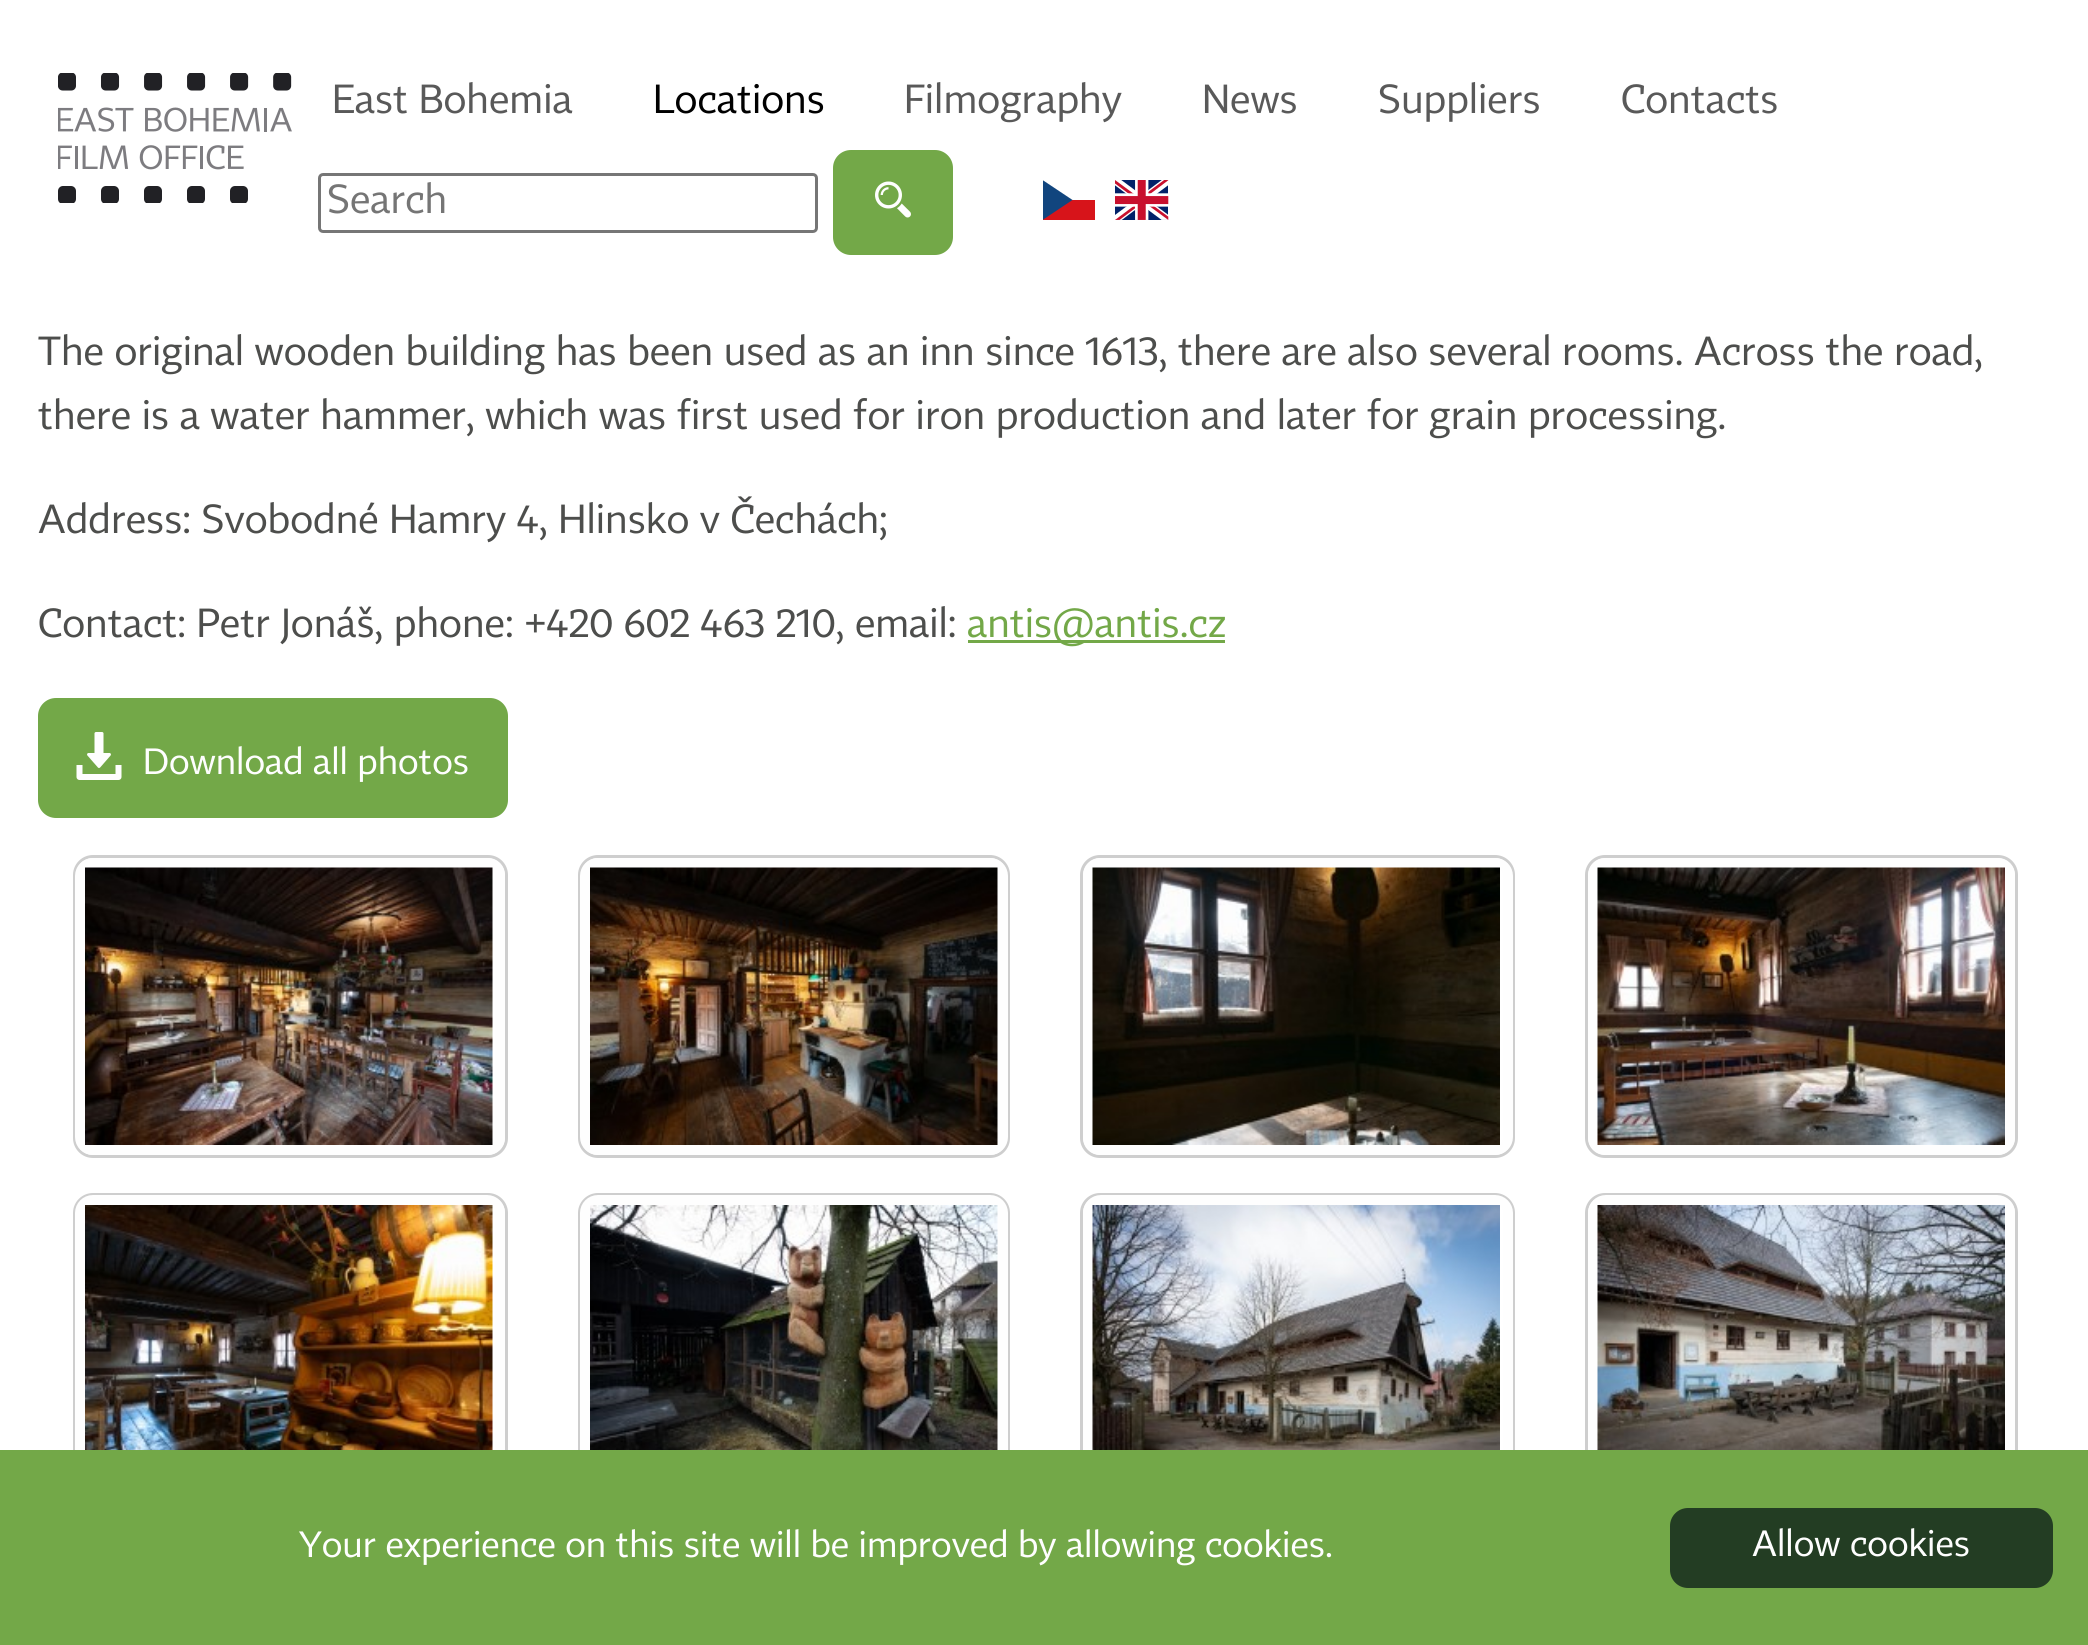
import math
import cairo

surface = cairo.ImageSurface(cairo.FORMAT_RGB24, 2088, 1645)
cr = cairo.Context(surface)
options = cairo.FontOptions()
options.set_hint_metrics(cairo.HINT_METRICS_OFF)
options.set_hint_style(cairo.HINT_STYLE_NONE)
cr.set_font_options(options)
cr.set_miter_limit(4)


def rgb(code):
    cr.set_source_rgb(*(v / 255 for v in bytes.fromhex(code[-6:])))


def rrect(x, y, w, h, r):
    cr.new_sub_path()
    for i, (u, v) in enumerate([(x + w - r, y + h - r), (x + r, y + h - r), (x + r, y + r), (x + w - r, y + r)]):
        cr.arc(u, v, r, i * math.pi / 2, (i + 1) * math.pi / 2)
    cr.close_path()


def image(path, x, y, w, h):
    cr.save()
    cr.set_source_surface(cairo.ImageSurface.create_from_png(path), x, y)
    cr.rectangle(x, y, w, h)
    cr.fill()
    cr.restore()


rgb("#ffffff")
cr.paint()
image("img/1.png", 58, 73, 234, 130)
rrect(319.5, 174.5, 497, 57, 3.5)
rgb("#767676")
cr.set_line_width(3)
cr.stroke()
rgb("#73a848")
rrect(833, 150, 120, 105, 18)
cr.fill()
image("img/2.png", 875, 181, 36, 37)
rgb("#d7141a")
cr.rectangle(1043, 200, 52, 20)
cr.fill()
cr.save()
cr.rectangle(1043, 180, 52, 40)
cr.clip()
rgb("#11457e")
cr.new_path()
cr.move_to(1072.5, 200)
cr.line_to(1042.5, 180)
cr.line_to(1042.5, 220)
cr.close_path()
cr.fill()
cr.restore()
image("img/3.png", 1115, 180, 54, 40)
rgb("#73a848")
cr.rectangle(968, 640, 257, 3)
cr.fill()
rrect(38, 698, 470, 120, 18)
cr.fill()
image("img/4.png", 76, 732, 46, 48)
rrect(74.5, 856.5, 432, 300, 18.5)
rgb("#cecece")
cr.stroke()
rrect(80, 863, 420, 287, 13)
rgb("#fefefe")
cr.set_line_width(10)
cr.stroke()
image("img/5.png", 85, 867, 408, 278)
rrect(579.5, 856.5, 429, 300, 18.5)
rgb("#cecece")
cr.set_line_width(3)
cr.stroke()
rrect(585, 863, 418, 287, 13)
rgb("#fefefe")
cr.set_line_width(10)
cr.stroke()
image("img/6.png", 590, 867, 408, 278)
rrect(1081.5, 856.5, 432, 300, 18.5)
rgb("#cecece")
cr.set_line_width(3)
cr.stroke()
rrect(1088, 863, 420, 287, 13)
rgb("#fefefe")
cr.set_line_width(10)
cr.stroke()
image("img/7.png", 1092, 867, 408, 278)
rrect(1586.5, 856.5, 430, 300, 18.5)
rgb("#cecece")
cr.set_line_width(3)
cr.stroke()
rrect(1593, 863, 417, 287, 13)
rgb("#fefefe")
cr.set_line_width(10)
cr.stroke()
image("img/8.png", 1597, 867, 408, 278)
rrect(74.5, 1194.5, 432, 302, 18.5)
rgb("#cecece")
cr.set_line_width(3)
cr.stroke()
rrect(80, 1200, 420, 290, 13)
rgb("#fefefe")
cr.set_line_width(10)
cr.stroke()
image("img/9.png", 85, 1205, 408, 245)
rrect(579.5, 1194.5, 429, 302, 18.5)
rgb("#cecece")
cr.set_line_width(3)
cr.stroke()
rrect(585, 1200, 418, 290, 13)
rgb("#fefefe")
cr.set_line_width(10)
cr.stroke()
image("img/10.png", 590, 1205, 408, 245)
rrect(1081.5, 1194.5, 432, 302, 18.5)
rgb("#cecece")
cr.set_line_width(3)
cr.stroke()
rrect(1088, 1200, 420, 290, 13)
rgb("#fefefe")
cr.set_line_width(10)
cr.stroke()
image("img/11.png", 1092, 1205, 408, 245)
rrect(1586.5, 1194.5, 430, 302, 18.5)
rgb("#cecece")
cr.set_line_width(3)
cr.stroke()
rrect(1593, 1200, 417, 290, 13)
rgb("#fefefe")
cr.set_line_width(10)
cr.stroke()
image("img/12.png", 1597, 1205, 408, 245)
rgb("#73a848")
cr.rectangle(0, 1450, 2088, 195)
cr.fill()
rgb("#233d23")
rrect(1670, 1508, 383, 80, 18)
cr.fill()
cr.select_font_face("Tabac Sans")
cr.set_font_size(40)
rgb("#595959")
cr.move_to(332, 113)
cr.show_text("East Bohemia")
rgb("#000000")
cr.move_to(653, 113)
cr.show_text("Locations")
rgb("#595959")
for x, y, s in [
    (904, 113, "Filmography"),
    (1202, 113, "News"),
    (1378, 113, "Suppliers"),
    (1621, 113, "Contacts"),
]:
    cr.move_to(x, y)
    cr.show_text(s)
rgb("#757575")
cr.move_to(327, 213)
cr.show_text("Search")
rgb("#4d4e4c")
for x, y, s in [
    (38, 365, "The original wooden building has been used as an inn since 1613, there are also several rooms. Across the road,"),
    (38, 429, "there is a water hammer, which was first used for iron production and later for grain processing."),
    (38, 533, "Address: Svobodné Hamry 4, Hlinsko v Čechách;"),
    (38, 637, "Contact: Petr Jonáš, phone: +420 602 463 210, email:"),
]:
    cr.move_to(x, y)
    cr.show_text(s)
rgb("#73a848")
cr.move_to(967, 637)
cr.show_text("antis@antis.cz")
cr.set_font_size(36)
rgb("#fefefe")
for x, y, s in [
    (143, 774, "Download all photos"),
    (299, 1557, "Your experience on this site will be improved by allowing cookies."),
    (1752, 1556, "Allow cookies"),
]:
    cr.move_to(x, y)
    cr.show_text(s)
surface.write_to_png("page.png")
